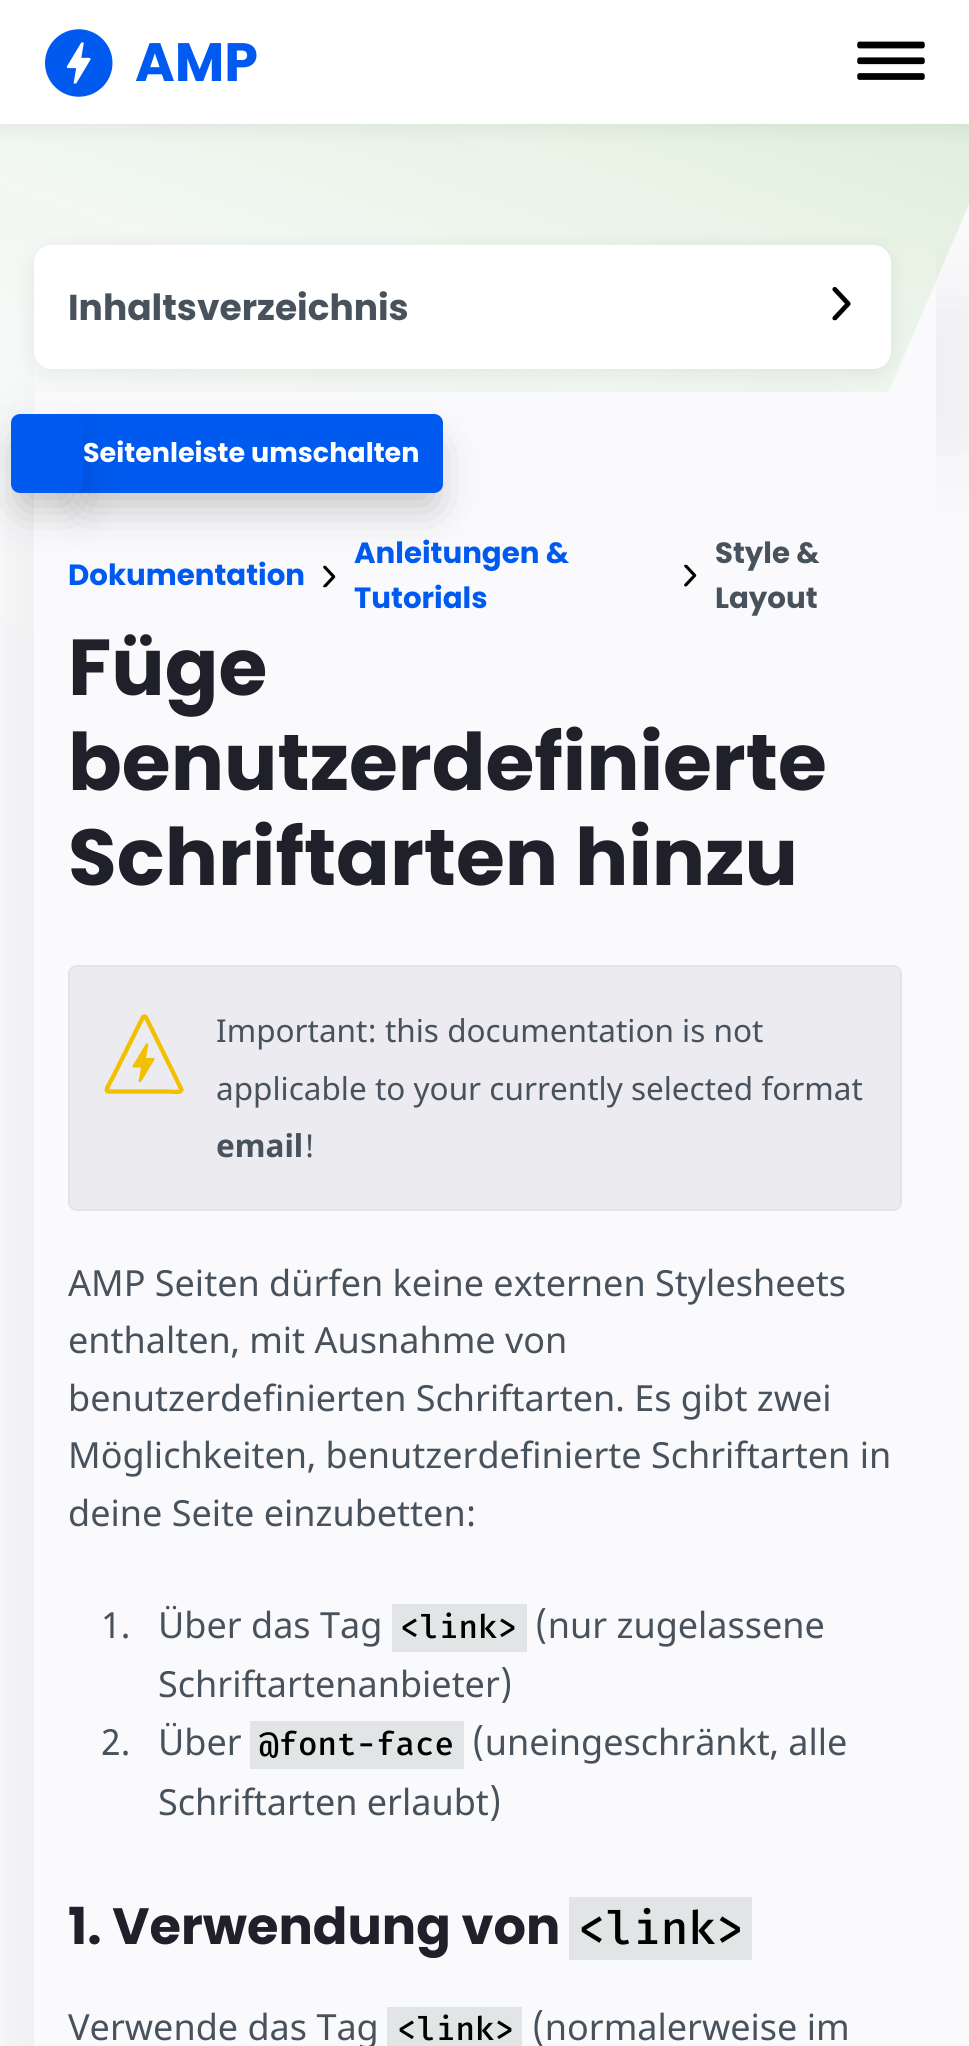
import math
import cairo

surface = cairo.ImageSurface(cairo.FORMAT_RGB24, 969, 2046)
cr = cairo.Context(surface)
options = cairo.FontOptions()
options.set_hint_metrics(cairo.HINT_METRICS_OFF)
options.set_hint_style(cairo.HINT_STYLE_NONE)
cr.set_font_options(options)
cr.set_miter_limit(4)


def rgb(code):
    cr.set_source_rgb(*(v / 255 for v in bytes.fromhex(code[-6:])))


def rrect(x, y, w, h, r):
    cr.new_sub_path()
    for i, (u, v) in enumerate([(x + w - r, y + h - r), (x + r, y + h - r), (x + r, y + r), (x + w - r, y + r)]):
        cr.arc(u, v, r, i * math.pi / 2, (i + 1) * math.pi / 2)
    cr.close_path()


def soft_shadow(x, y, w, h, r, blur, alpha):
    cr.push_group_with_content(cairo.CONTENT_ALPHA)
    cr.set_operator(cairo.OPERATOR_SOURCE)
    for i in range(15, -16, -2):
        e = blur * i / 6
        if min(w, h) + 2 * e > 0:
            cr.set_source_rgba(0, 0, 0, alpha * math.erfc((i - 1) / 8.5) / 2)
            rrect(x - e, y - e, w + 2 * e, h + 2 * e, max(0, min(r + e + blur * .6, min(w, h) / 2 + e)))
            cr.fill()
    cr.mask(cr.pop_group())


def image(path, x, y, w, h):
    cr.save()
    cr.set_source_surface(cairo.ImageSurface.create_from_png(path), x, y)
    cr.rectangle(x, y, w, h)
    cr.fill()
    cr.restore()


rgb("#fafafc")
cr.paint()
image("img/1.png", 0, 124, 969, 563)
rgb("#000000")
soft_shadow(0, 5, 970, 123, 0, 11, 0.07)
rgb("#ffffff")
cr.rectangle(0, 0, 969, 124)
cr.fill()
image("img/2.png", 45, 29, 68, 68)
image("img/3.png", 857, 41, 68, 39)
cr.save()
cr.set_fill_rule(cairo.FILL_RULE_EVEN_ODD)
cr.new_path()
cr.move_to(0, 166)
cr.line_to(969, 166)
cr.line_to(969, 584)
cr.line_to(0, 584)
cr.close_path()
cr.move_to(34, 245)
cr.line_to(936, 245)
cr.line_to(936, 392)
cr.line_to(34, 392)
cr.close_path()
cr.clip()
rgb("#000000")
soft_shadow(79, 302, 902, 146, 0, 45, 0.05)
cr.restore()
rgb("#000000")
soft_shadow(11, 425, 813, 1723, 0, 34, 0.05)
rgb("#fafafc")
cr.rectangle(34, 392, 902, 1654)
cr.fill()
rgb("#000000")
soft_shadow(34, 250, 857, 124, 18, 11, 0.07)
rgb("#ffffff")
rrect(34, 245, 857, 124, 18)
cr.fill()
image("img/4.png", 832, 287, 19, 34)
image("img/5.png", 323, 565, 13, 23)
rgb("#000000")
soft_shadow(83, 448, 349, 56, 0, 22.5, 0.25)
rgb("#005af0")
cr.new_path()
cr.move_to(72, 414)
cr.line_to(434, 414)
cr.curve_to(439, 414, 443, 418, 443, 423)
cr.line_to(443, 484)
cr.curve_to(443, 489, 439, 493, 434, 493)
cr.line_to(72, 493)
cr.close_path()
cr.fill()
rgb("#000000")
soft_shadow(23, 448, 49, 56, 0, 22.5, 0.25)
rgb("#005af0")
rrect(11, 414, 72, 79, 9)
cr.fill()
image("img/6.png", 684, 564, 13, 23)
rgb("#ebebf0")
rrect(69, 966, 832, 244, 8)
cr.fill_preserve()
rgb("#e2e5e6")
cr.stroke()
cr.save()
cr.rectangle(104, 1013, 81, 81)
cr.clip()
cr.new_path()
cr.move_to(146, 1017.5)
cr.line_to(181.5, 1089.5)
cr.curve_to(181.5, 1093.5, 171, 1091.5, 168, 1091.5)
cr.line_to(108, 1091.5)
cr.curve_to(104.5, 1090.5, 109, 1084.5, 113, 1077)
cr.line_to(143, 1017)
cr.curve_to(144, 1016, 145.5, 1016.5, 146, 1017.5)
cr.close_path()
rgb("#f3c000")
cr.set_line_width(4.3)
cr.stroke()
cr.restore()
rgb("#f3c000")
cr.new_path()
cr.move_to(141, 1082)
cr.line_to(138.5, 1082)
cr.line_to(141, 1067.5)
cr.line_to(136, 1067.5)
cr.curve_to(135.5, 1067.5, 131.5, 1068, 132.5, 1066)
cr.line_to(146, 1043.5)
cr.line_to(148.5, 1043.5)
cr.line_to(146, 1058)
cr.line_to(151, 1058)
cr.curve_to(151.5, 1058, 155.5, 1057.5, 154.5, 1059.5)
cr.close_path()
cr.fill()
for x, y, w, h, color in [
    (392, 1604, 135, 48, "#e2e5e6"),
    (250, 1721, 214, 48, "#e2e5e6"),
    (569, 1897, 183, 63, "#e2e5e6"),
    (387, 2007, 135, 39, "#e2e5e6"),
]:
    rgb(color)
    cr.rectangle(x, y, w, h)
    cr.fill()
cr.select_font_face("Poppins", cairo.FONT_SLANT_NORMAL, cairo.FONT_WEIGHT_BOLD)
cr.set_font_size(54)
rgb("#005af0")
cr.move_to(135, 81)
cr.show_text("AMP")
cr.set_font_size(36)
rgb("#48525c")
cr.move_to(68, 320)
cr.show_text("Inhaltsverzeichnis")
cr.set_font_size(27)
rgb("#ffffff")
cr.move_to(83, 462)
cr.show_text("Seitenleiste umschalten")
cr.set_font_size(29.25)
rgb("#005af0")
for x, y, s in [
    (68, 585, "Dokumentation"),
    (354, 563, "Anleitungen &"),
    (354, 608, "Tutorials"),
]:
    cr.move_to(x, y)
    cr.show_text(s)
rgb("#48525c")
cr.move_to(715, 563)
cr.show_text("Style &")
cr.move_to(715, 608)
cr.show_text("Layout")
cr.set_font_size(79.25)
rgb("#20202a")
for x, y, s in [
    (68, 695, "Füge"),
    (68, 790, "benutzerdefinierte"),
    (68, 885, "Schriftarten hinzu"),
]:
    cr.move_to(x, y)
    cr.show_text(s)
cr.select_font_face("Noto Sans")
cr.set_font_size(31.5)
rgb("#48525c")
cr.move_to(216, 1042)
cr.show_text("Important: this documentation is not")
cr.move_to(216, 1100)
cr.show_text("applicable to your currently selected format")
cr.select_font_face("Noto Sans", cairo.FONT_SLANT_NORMAL, cairo.FONT_WEIGHT_BOLD)
cr.move_to(216, 1157)
cr.show_text("email")
cr.select_font_face("Noto Sans")
cr.move_to(303, 1157)
cr.show_text("!")
cr.set_font_size(36)
for x, y, s in [
    (68, 1296, "AMP Seiten dürfen keine externen Stylesheets"),
    (68, 1353, "enthalten, mit Ausnahme von"),
    (68, 1411, "benutzerdefinierten Schriftarten. Es gibt zwei"),
    (68, 1468, "Möglichkeiten, benutzerdefinierte Schriftarten in"),
    (68, 1526, "deine Seite einzubetten:"),
    (101, 1638, "1."),
    (158, 1638, "Über das Tag"),
]:
    cr.move_to(x, y)
    cr.show_text(s)
cr.select_font_face("Fira Mono Medium")
cr.set_font_size(32.5)
rgb("#000000")
cr.move_to(400, 1638)
cr.show_text("<link>")
cr.select_font_face("Noto Sans")
cr.set_font_size(36)
rgb("#48525c")
for x, y, s in [
    (535, 1638, "(nur zugelassene"),
    (158, 1697, "Schriftartenanbieter)"),
    (101, 1755, "2."),
    (158, 1755, "Über"),
]:
    cr.move_to(x, y)
    cr.show_text(s)
cr.select_font_face("Fira Mono Medium")
cr.set_font_size(32.5)
rgb("#000000")
cr.move_to(259, 1755)
cr.show_text("@font-face")
cr.select_font_face("Noto Sans")
cr.set_font_size(36)
rgb("#48525c")
cr.move_to(472, 1755)
cr.show_text("(uneingeschränkt, alle")
cr.move_to(158, 1815)
cr.show_text("Schriftarten erlaubt)")
cr.select_font_face("Poppins", cairo.FONT_SLANT_NORMAL, cairo.FONT_WEIGHT_BOLD)
cr.set_font_size(51)
rgb("#20202a")
cr.move_to(68, 1944)
cr.show_text("1. Verwendung von")
cr.select_font_face("Fira Mono Medium")
cr.set_font_size(46)
rgb("#000000")
cr.move_to(578, 1944)
cr.show_text("<link>")
cr.select_font_face("Noto Sans")
cr.set_font_size(36)
rgb("#48525c")
cr.move_to(68, 2040)
cr.show_text("Verwende das Tag")
cr.select_font_face("Fira Mono Medium")
cr.set_font_size(32.5)
rgb("#000000")
cr.move_to(397, 2040)
cr.show_text("<link>")
cr.select_font_face("Noto Sans")
cr.set_font_size(36)
rgb("#48525c")
cr.move_to(532, 2040)
cr.show_text("(normalerweise im")
surface.write_to_png("page.png")
